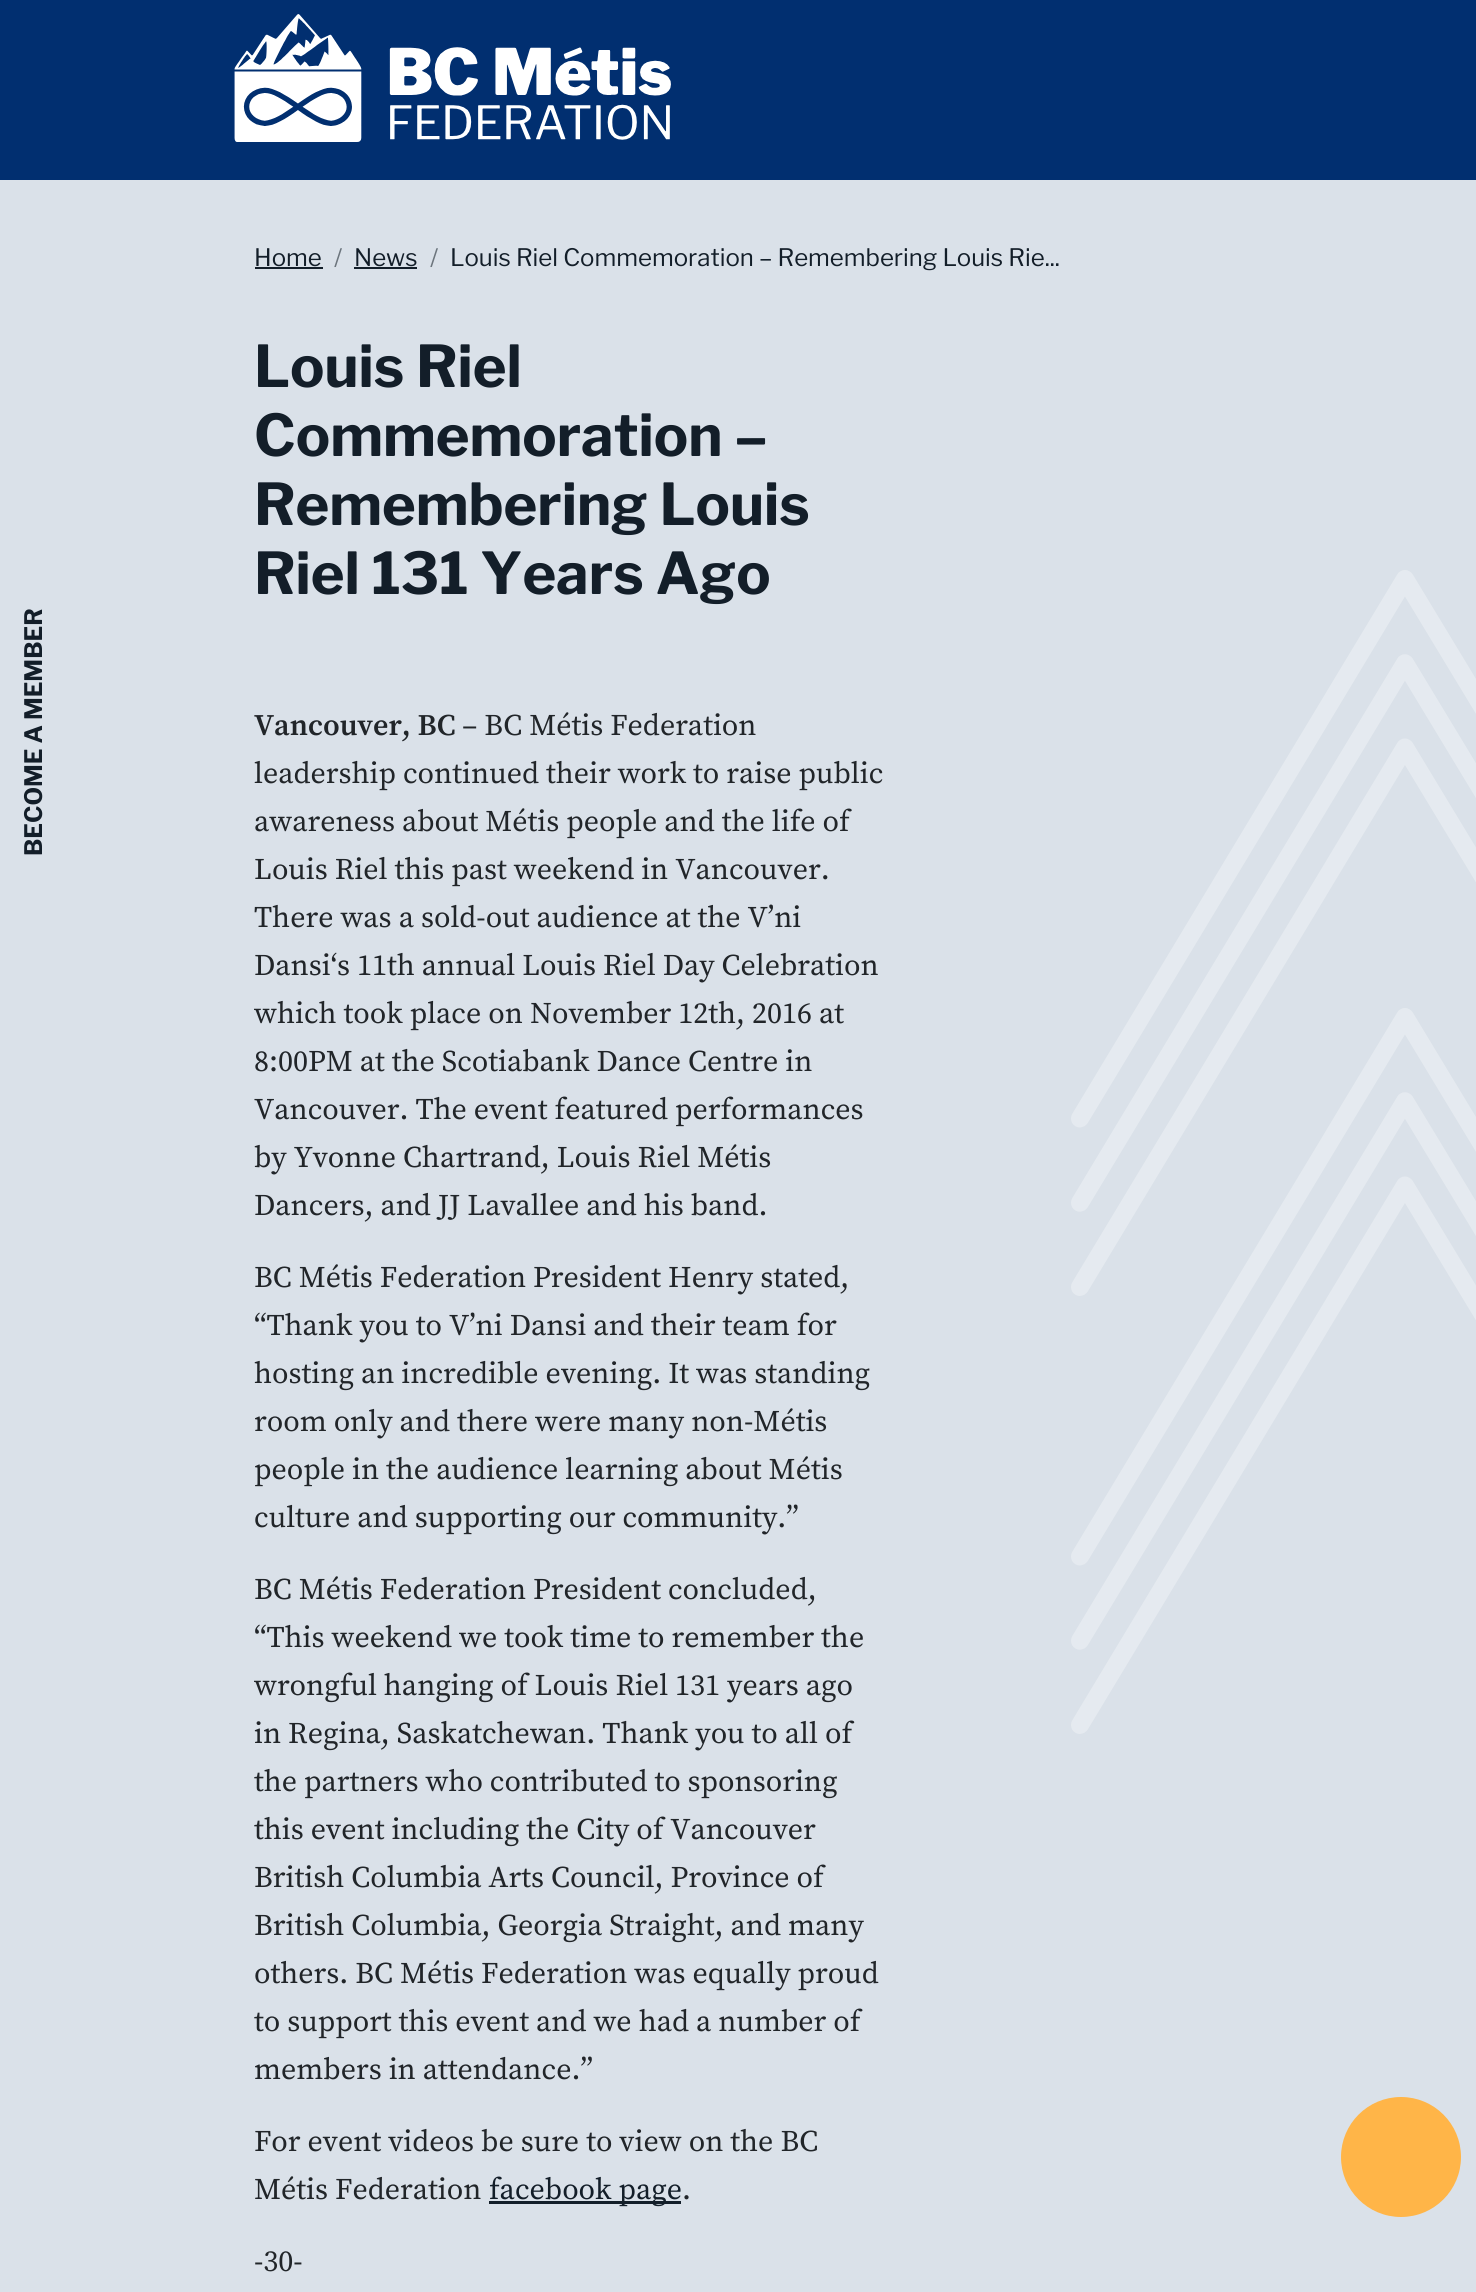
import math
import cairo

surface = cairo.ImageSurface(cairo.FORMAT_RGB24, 1476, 2292)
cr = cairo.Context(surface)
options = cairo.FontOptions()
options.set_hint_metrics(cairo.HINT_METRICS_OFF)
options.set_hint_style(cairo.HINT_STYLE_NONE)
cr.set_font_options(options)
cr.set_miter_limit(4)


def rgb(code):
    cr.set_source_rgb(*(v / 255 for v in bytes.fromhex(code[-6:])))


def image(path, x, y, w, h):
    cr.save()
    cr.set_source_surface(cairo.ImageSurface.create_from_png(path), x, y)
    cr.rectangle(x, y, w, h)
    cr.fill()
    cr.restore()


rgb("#dae1e9")
cr.paint()
rgb("#012f70")
cr.rectangle(0, 0, 1476, 180)
cr.fill()
image("img/1.png", 234, 14, 437, 128)
for x, y, w, h, color in [
    (255, 267, 68, 2, "#131e29"),
    (354, 267, 63, 2, "#131e29"),
    (489, 2201, 192, 3, "#131e29"),
]:
    rgb(color)
    cr.rectangle(x, y, w, h)
    cr.fill()
image("img/2.png", 1071, 570, 405, 1164)
rgb("#ffb548")
cr.arc(1401, 2157, 60, 0, 2 * math.pi)
cr.fill()
cr.select_font_face("Libre Franklin")
cr.set_font_size(24)
rgb("#131e29")
cr.move_to(254, 266)
cr.show_text("Home")
rgb("#6c757d")
cr.move_to(334, 266)
cr.show_text("/")
rgb("#131e29")
cr.move_to(354, 266)
cr.show_text("News")
rgb("#6c757d")
cr.move_to(430, 266)
cr.show_text("/")
rgb("#131e29")
cr.move_to(450, 266)
cr.show_text("Louis Riel Commemoration – Remembering Louis Rie...")
cr.select_font_face("Libre Franklin", cairo.FONT_SLANT_NORMAL, cairo.FONT_WEIGHT_BOLD)
cr.set_font_size(57.5)
for x, y, s in [
    (254, 387, "Louis Riel"),
    (254, 456, "Commemoration –"),
    (254, 525, "Remembering Louis"),
    (254, 594, "Riel 131 Years Ago"),
]:
    cr.move_to(x, y)
    cr.show_text(s)
cr.set_font_size(24)
cr.save()
cr.translate(42, 856)
cr.rotate(-90 * math.pi / 180)
cr.move_to(0, 0)
cr.show_text("BECOME A MEMBER")
cr.restore()
cr.select_font_face("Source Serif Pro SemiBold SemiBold")
cr.set_font_size(30)
rgb("#212529")
cr.move_to(254, 735)
cr.show_text("Vancouver, BC")
cr.select_font_face("Source Serif Pro")
for x, y, s in [
    (462, 735, "– BC Métis Federation"),
    (254, 783, "leadership continued their work to raise public"),
    (254, 831, "awareness about Métis people and the life of"),
    (254, 879, "Louis Riel this past weekend in Vancouver."),
    (254, 927, "There was a sold-out audience at the V’ni"),
    (254, 975, "Dansi‘s 11th annual Louis Riel Day Celebration"),
    (254, 1023, "which took place on November 12th, 2016 at"),
    (254, 1071, "8:00PM at the Scotiabank Dance Centre in"),
    (254, 1119, "Vancouver. The event featured performances"),
    (254, 1167, "by Yvonne Chartrand, Louis Riel Métis"),
    (254, 1215, "Dancers, and JJ Lavallee and his band."),
    (254, 1287, "BC Métis Federation President Henry stated,"),
    (254, 1335, "“Thank you to V’ni Dansi and their team for"),
    (254, 1383, "hosting an incredible evening. It was standing"),
    (254, 1431, "room only and there were many non-Métis"),
    (254, 1479, "people in the audience learning about Métis"),
    (254, 1527, "culture and supporting our community.”"),
    (254, 1599, "BC Métis Federation President concluded,"),
    (254, 1647, "“This weekend we took time to remember the"),
    (254, 1695, "wrongful hanging of Louis Riel 131 years ago"),
    (254, 1743, "in Regina, Saskatchewan. Thank you to all of"),
    (254, 1791, "the partners who contributed to sponsoring"),
    (254, 1839, "this event including the City of Vancouver"),
    (254, 1887, "British Columbia Arts Council, Province of"),
    (254, 1935, "British Columbia, Georgia Straight, and many"),
    (254, 1983, "others. BC Métis Federation was equally proud"),
    (254, 2031, "to support this event and we had a number of"),
    (254, 2079, "members in attendance.”"),
    (254, 2151, "For event videos be sure to view on the BC"),
    (254, 2199, "Métis Federation"),
]:
    cr.move_to(x, y)
    cr.show_text(s)
rgb("#131e29")
cr.move_to(489, 2199)
cr.show_text("facebook page")
rgb("#212529")
cr.move_to(682, 2199)
cr.show_text(".")
cr.move_to(254, 2271)
cr.show_text("-30-")
surface.write_to_png("page.png")
